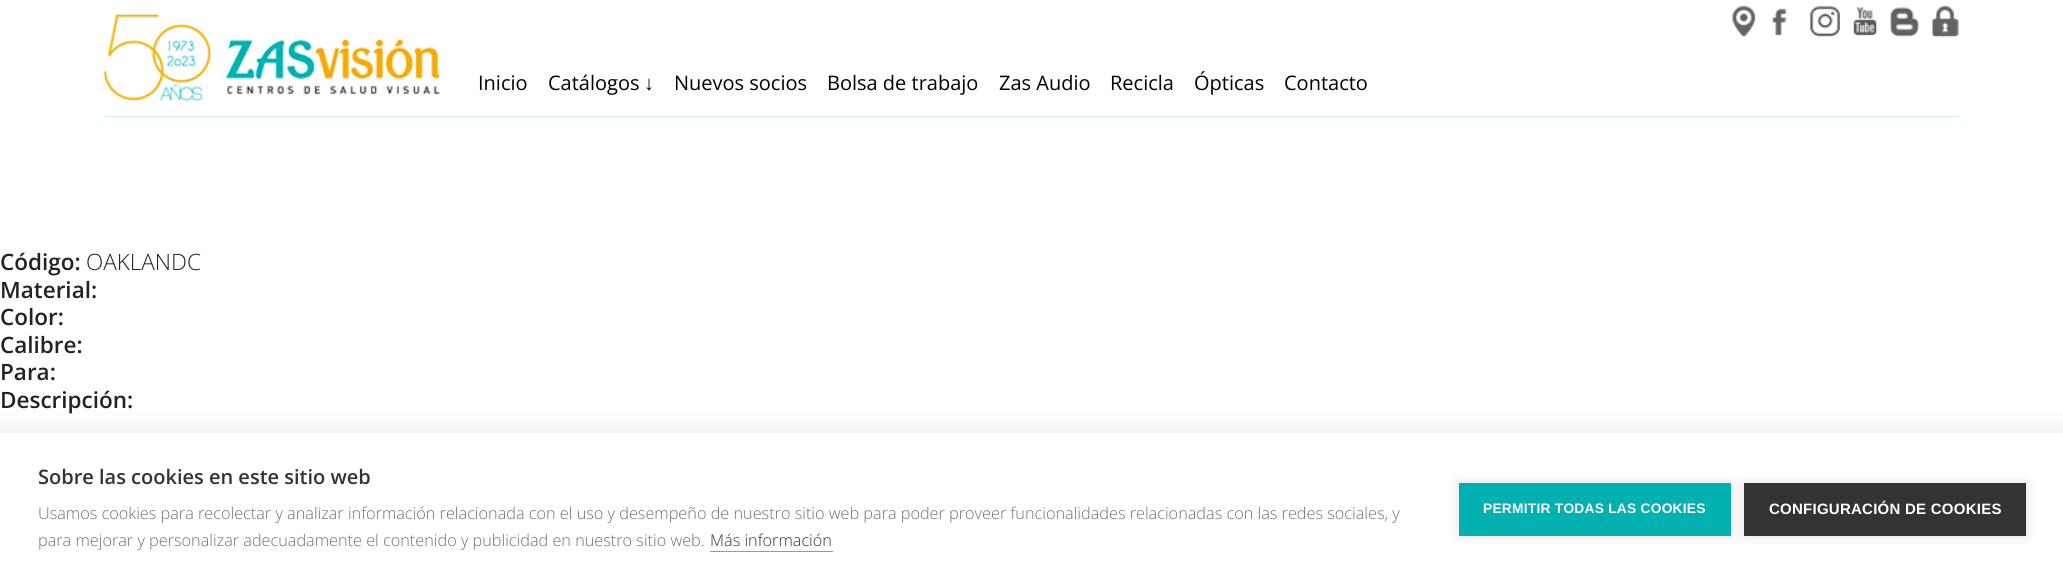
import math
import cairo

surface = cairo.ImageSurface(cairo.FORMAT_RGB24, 2063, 585)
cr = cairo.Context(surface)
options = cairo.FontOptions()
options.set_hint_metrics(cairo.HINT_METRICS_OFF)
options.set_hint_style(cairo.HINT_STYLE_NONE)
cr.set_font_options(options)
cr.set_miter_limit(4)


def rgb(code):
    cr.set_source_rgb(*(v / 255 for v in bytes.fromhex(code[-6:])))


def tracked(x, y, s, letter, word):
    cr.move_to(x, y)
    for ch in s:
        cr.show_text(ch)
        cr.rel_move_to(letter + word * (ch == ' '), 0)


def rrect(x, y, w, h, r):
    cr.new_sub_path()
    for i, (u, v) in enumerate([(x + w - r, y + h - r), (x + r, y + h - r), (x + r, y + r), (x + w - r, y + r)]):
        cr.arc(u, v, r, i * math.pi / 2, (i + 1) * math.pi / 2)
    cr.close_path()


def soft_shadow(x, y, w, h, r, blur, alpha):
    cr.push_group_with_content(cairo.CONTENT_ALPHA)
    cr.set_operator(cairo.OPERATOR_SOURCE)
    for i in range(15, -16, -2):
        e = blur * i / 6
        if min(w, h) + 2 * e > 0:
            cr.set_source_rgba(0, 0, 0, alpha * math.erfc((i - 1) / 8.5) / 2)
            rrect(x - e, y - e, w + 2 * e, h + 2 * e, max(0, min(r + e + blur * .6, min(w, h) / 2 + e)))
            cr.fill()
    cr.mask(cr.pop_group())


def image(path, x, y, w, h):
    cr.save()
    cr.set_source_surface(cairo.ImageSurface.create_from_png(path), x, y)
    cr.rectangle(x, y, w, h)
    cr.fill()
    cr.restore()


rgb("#ffffff")
cr.paint()
image("img/1.png", 1732, 6, 24, 31)
image("img/2.png", 1772, 8, 15, 28)
image("img/3.png", 1810, 6, 30, 31)
image("img/4.png", 1853, 7, 24, 29)
image("img/5.png", 1890, 7, 29, 30)
image("img/6.png", 1932, 6, 27, 31)
rgb("#d2eaea")
cr.rectangle(104, 116, 1856, 1)
cr.fill()
image("img/7.png", 103, 13, 338, 89)
rgb("#000000")
soft_shadow(0, 433, 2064, 152, 0, 12.5, 0.1)
rgb("#ffffff")
cr.rectangle(0, 433, 2063, 152)
cr.fill()
rgb("#999999")
cr.rectangle(710, 551, 123, 1)
cr.fill()
rgb("#000000")
soft_shadow(1459, 483, 272, 53, 0, 6, 0.12)
rgb("#01b1b1")
cr.rectangle(1459, 483, 272, 53)
cr.fill()
rgb("#000000")
soft_shadow(1744, 483, 282, 53, 0, 6, 0.12)
rgb("#333333")
cr.rectangle(1744, 483, 282, 53)
cr.fill()
cr.select_font_face("Open Sans")
cr.set_font_size(20)
rgb("#000000")
cr.move_to(478, 90)
cr.show_text("Inicio")
cr.move_to(548, 90)
cr.show_text("Catálogos")
cr.select_font_face("Liberation Sans")
cr.move_to(644, 90)
cr.show_text("↓")
cr.select_font_face("Open Sans")
for x, y, s in [
    (674, 90, "Nuevos socios"),
    (827, 90, "Bolsa de trabajo"),
    (999, 90, "Zas Audio"),
    (1110, 90, "Recicla"),
    (1194, 90, "Ópticas"),
    (1284, 90, "Contacto"),
]:
    cr.move_to(x, y)
    cr.show_text(s)
cr.select_font_face("Open Sans SemiBold")
cr.set_font_size(22.5)
rgb("#232325")
cr.move_to(0, 270)
cr.show_text("Código:")
cr.select_font_face("Open Sans Light")
cr.move_to(86, 270)
cr.show_text("OAKLANDC")
cr.select_font_face("Open Sans SemiBold")
for x, y, s in [
    (0, 298, "Material:"),
    (0, 325, "Color:"),
    (0, 353, "Calibre:"),
    (0, 380, "Para:"),
    (0, 408, "Descripción:"),
]:
    cr.move_to(x, y)
    cr.show_text(s)
cr.set_font_size(20)
rgb("#333333")
cr.move_to(38, 484)
cr.show_text("Sobre las cookies en este sitio web")
cr.select_font_face("Open Sans Light")
cr.set_font_size(16.25)
rgb("#707070")
cr.move_to(38, 519)
cr.show_text("Usamos cookies para recolectar y analizar información relacionada con el uso y desempeño de nuestro sitio web para poder proveer funcionalidades relacionadas con las redes sociales, y")
cr.move_to(38, 546)
cr.show_text("para mejorar y personalizar adecuadamente el contenido y publicidad en nuestro sitio web.")
rgb("#333333")
cr.move_to(710, 546)
cr.show_text("Más información")
cr.select_font_face("Liberation Sans", cairo.FONT_SLANT_NORMAL, cairo.FONT_WEIGHT_BOLD)
cr.set_font_size(13.75)
rgb("#ffffff")
tracked(1483, 513, "PERMITIR TODAS LAS COOKIES", 0.25, 0)
cr.set_font_size(15)
tracked(1769, 514, "CONFIGURACIÓN DE COOKIES", 0.25, 0)
surface.write_to_png("page.png")
